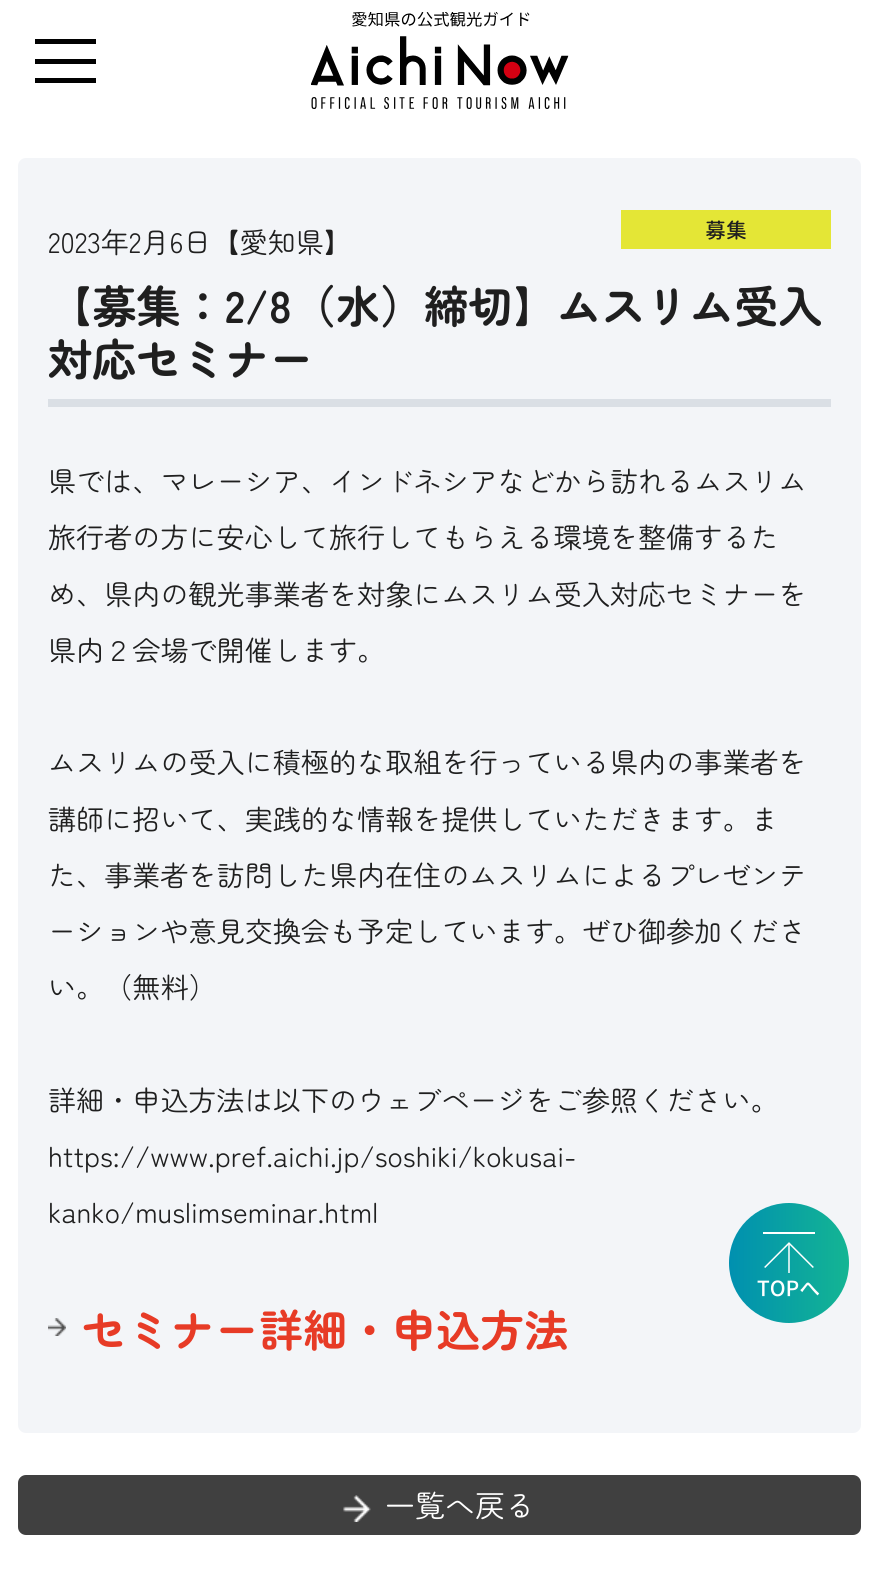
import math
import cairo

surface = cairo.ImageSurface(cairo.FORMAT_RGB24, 879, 1584)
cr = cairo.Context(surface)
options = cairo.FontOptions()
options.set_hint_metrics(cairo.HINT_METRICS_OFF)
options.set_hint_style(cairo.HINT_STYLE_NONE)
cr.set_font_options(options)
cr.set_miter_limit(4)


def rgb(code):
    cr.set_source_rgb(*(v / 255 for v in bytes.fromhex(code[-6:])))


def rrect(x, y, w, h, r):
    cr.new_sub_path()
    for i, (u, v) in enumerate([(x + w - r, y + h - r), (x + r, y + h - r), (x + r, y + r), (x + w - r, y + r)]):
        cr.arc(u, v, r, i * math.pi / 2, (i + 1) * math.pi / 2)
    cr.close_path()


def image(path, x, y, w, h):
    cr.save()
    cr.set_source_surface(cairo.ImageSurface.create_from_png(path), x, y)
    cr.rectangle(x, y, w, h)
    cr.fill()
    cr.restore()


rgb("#ffffff")
cr.paint()
for x, y, w, h, color in [
    (35, 39, 61, 5, "#010101"),
    (35, 59, 61, 5, "#010101"),
    (35, 78, 61, 5, "#010101"),
]:
    rgb(color)
    cr.rectangle(x, y, w, h)
    cr.fill()
image("img/1.png", 311, 12, 258, 97)
rgb("#f3f5f8")
rrect(18, 158, 843, 1275, 8)
cr.fill()
rgb("#e4e636")
cr.rectangle(621, 210, 210, 39)
cr.fill()
rgb("#dadfe5")
cr.rectangle(48, 399, 783, 8)
cr.fill()
image("img/2.png", 48, 1318, 18, 18)
rgb("#404040")
rrect(18, 1475, 843, 60, 8)
cr.fill()
image("img/3.png", 343, 1495, 28, 27)
image("img/4.png", 729, 1203, 120, 120)
cr.select_font_face("Zen Maru Gothic")
cr.set_font_size(28.1)
rgb("#1f1f1f")
cr.move_to(48, 253)
cr.show_text("2023年2月6日【愛知県】")
cr.select_font_face("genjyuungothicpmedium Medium")
cr.set_font_size(21)
cr.move_to(705, 238)
cr.show_text("募集")
cr.select_font_face("Zen Maru Gothic", cairo.FONT_SLANT_NORMAL, cairo.FONT_WEIGHT_BOLD)
cr.set_font_size(44.25)
cr.move_to(48, 323)
cr.show_text("【募集：2/8（水）締切】ムスリム受入")
cr.move_to(48, 376)
cr.show_text("対応セミナー")
cr.select_font_face("Zen Maru Gothic")
cr.set_font_size(28.1)
for x, y, s in [
    (48, 492, "県では、マレーシア、インドネシアなどから訪れるムスリム"),
    (48, 548, "旅行者の方に安心して旅行してもらえる環境を整備するた"),
    (48, 605, "め、県内の観光事業者を対象にムスリム受入対応セミナーを"),
    (48, 661, "県内２会場で開催します。"),
    (48, 773, "ムスリムの受入に積極的な取組を行っている県内の事業者を"),
    (48, 830, "講師に招いて、実践的な情報を提供していただきます。ま"),
    (48, 886, "た、事業者を訪問した県内在住のムスリムによるプレゼンテ"),
    (48, 942, "ーションや意見交換会も予定しています。ぜひ御参加くださ"),
    (48, 998, "い。（無料）"),
    (48, 1111, "詳細・申込方法は以下のウェブページをご参照ください。"),
    (48, 1167, "https://www.pref.aichi.jp/soshiki/kokusai-"),
    (48, 1223, "kanko/muslimseminar.html"),
]:
    cr.move_to(x, y)
    cr.show_text(s)
cr.select_font_face("Zen Maru Gothic", cairo.FONT_SLANT_NORMAL, cairo.FONT_WEIGHT_BOLD)
cr.set_font_size(44.25)
rgb("#e73b26")
cr.move_to(82, 1347)
cr.show_text("セミナー詳細・申込方法")
cr.select_font_face("Zen Maru Gothic")
cr.set_font_size(30)
rgb("#ffffff")
cr.move_to(385, 1517)
cr.show_text("一覧へ戻る")
surface.write_to_png("page.png")
